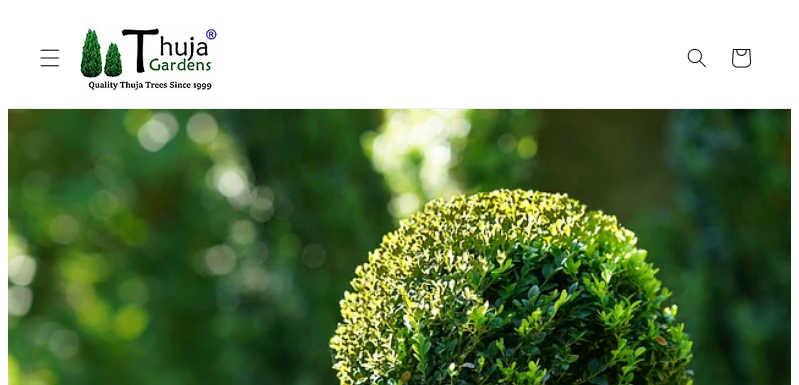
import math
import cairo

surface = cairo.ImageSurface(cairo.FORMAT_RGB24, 799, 385)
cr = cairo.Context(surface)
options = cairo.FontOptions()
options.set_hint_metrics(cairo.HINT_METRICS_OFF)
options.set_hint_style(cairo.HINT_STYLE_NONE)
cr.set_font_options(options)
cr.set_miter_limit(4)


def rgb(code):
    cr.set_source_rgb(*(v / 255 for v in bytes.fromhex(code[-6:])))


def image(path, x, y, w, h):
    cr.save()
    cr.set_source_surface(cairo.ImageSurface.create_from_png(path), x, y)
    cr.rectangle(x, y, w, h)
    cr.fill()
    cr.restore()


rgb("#ffffff")
cr.paint()
rgb("#ececec")
cr.rectangle(8, 108, 783, 1)
cr.fill()
image("img/1.png", 40, 49, 20, 18)
image("img/2.png", 80, 26, 140, 65)
image("img/3.png", 687, 48, 19, 20)
image("img/4.png", 732, 49, 20, 19)
image("img/5.png", 8, 109, 783, 276)
surface.write_to_png("page.png")
